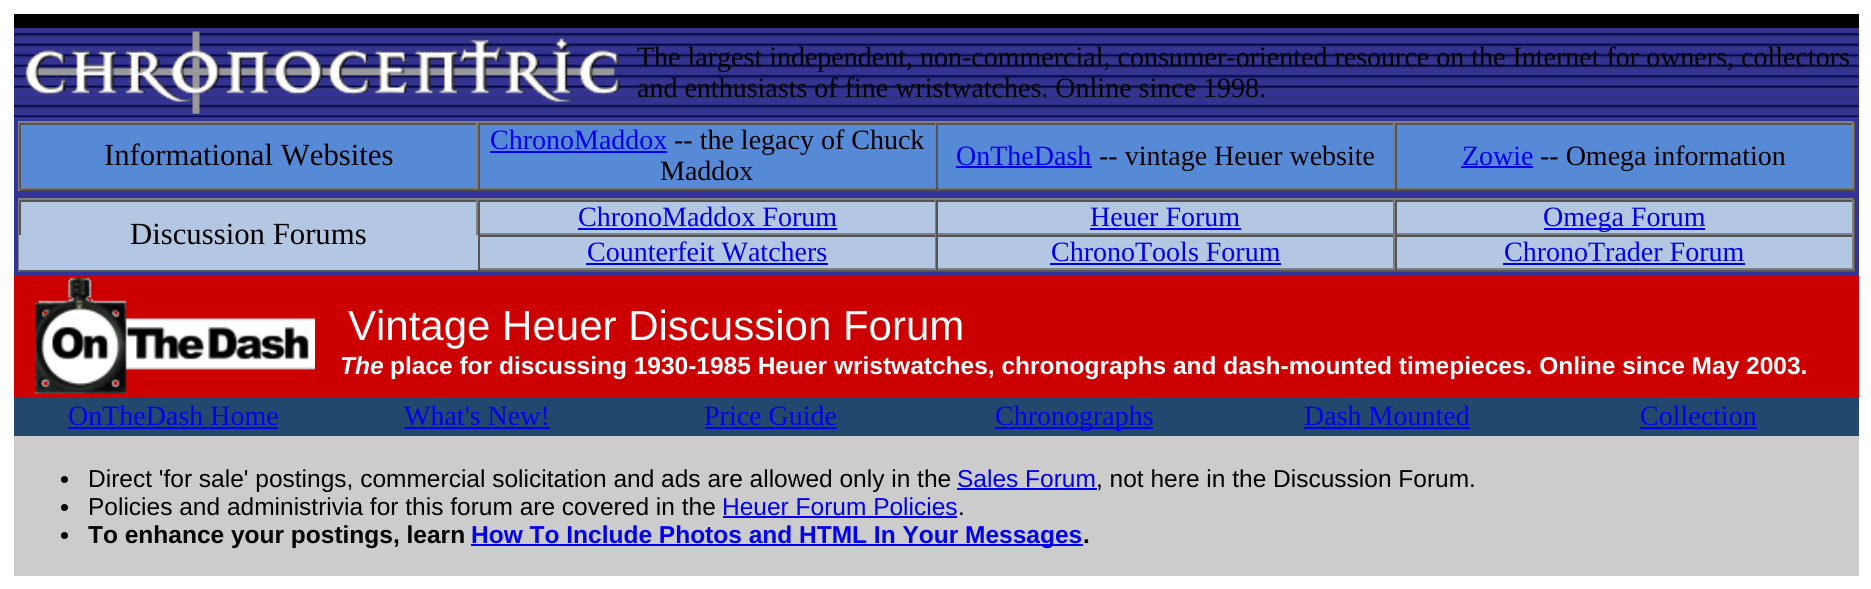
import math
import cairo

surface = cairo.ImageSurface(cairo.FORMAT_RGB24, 1871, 589)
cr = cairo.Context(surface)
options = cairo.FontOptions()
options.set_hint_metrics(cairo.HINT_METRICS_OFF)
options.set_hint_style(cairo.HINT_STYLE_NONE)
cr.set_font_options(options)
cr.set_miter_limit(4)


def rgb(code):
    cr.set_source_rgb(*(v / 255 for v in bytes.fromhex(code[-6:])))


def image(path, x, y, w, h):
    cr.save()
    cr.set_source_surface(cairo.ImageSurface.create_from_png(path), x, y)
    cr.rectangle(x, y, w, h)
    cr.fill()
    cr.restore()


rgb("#ffffff")
cr.paint()
rgb("#333399")
cr.rectangle(1858, 28, 1, 89)
cr.fill()
image("img/1.png", 14, 28, 1845, 89)
rgb("#000000")
cr.rectangle(14, 14, 1845, 14)
cr.fill()
image("img/2.png", 25, 31, 595, 83)
for x, y, w, h, color in [
    (14, 117, 1845, 158, "#333399"),
    (18, 121, 1837, 2, "#808080"),
    (1853, 121, 2, 70, "#555555"),
    (18, 189, 1837, 2, "#555555"),
    (18, 121, 2, 70, "#808080"),
    (21, 125, 1831, 62, "#578ad6"),
    (19, 123, 1834, 2, "#555555"),
    (476, 123, 2, 66, "#808080"),
    (19, 187, 459, 2, "#808080"),
    (19, 123, 2, 66, "#555555"),
    (935, 123, 1, 66, "#808080"),
    (478, 187, 458, 2, "#808080"),
    (478, 123, 2, 66, "#555555"),
    (490, 151, 177, 2, "#0000ee"),
    (1393, 123, 2, 66, "#808080"),
    (936, 187, 459, 2, "#808080"),
    (936, 123, 2, 66, "#555555"),
    (956, 166, 136, 2, "#0000ee"),
    (1852, 123, 2, 66, "#808080"),
    (1395, 187, 458, 2, "#808080"),
    (1395, 123, 2, 66, "#555555"),
    (1461, 166, 72, 2, "#0000ee"),
    (18, 198, 1837, 2, "#808080"),
    (1853, 198, 2, 73, "#555555"),
    (18, 270, 1837, 2, "#555555"),
    (18, 198, 2, 73, "#808080"),
    (21, 202, 1831, 33, "#b3c7e3"),
    (19, 200, 1834, 2, "#555555"),
    (476, 200, 2, 35, "#808080"),
    (19, 200, 2, 35, "#555555"),
    (935, 200, 1, 35, "#808080"),
    (478, 233, 458, 2, "#808080"),
    (478, 200, 2, 35, "#555555"),
    (578, 228, 259, 2, "#0000ee"),
    (1393, 200, 2, 35, "#808080"),
    (936, 233, 459, 2, "#808080"),
    (936, 200, 2, 35, "#555555"),
    (1090, 228, 151, 2, "#0000ee"),
    (1852, 200, 2, 35, "#808080"),
    (1395, 233, 458, 2, "#808080"),
    (1395, 200, 2, 35, "#555555"),
    (1544, 228, 161, 2, "#0000ee"),
    (19, 235, 1833, 35, "#b3c7e3"),
    (478, 235, 1375, 2, "#555555"),
    (935, 235, 1, 35, "#808080"),
    (478, 268, 458, 2, "#808080"),
    (478, 235, 2, 35, "#555555"),
    (586, 263, 242, 2, "#0000ee"),
    (1393, 235, 2, 35, "#808080"),
    (936, 268, 459, 2, "#808080"),
    (936, 235, 2, 35, "#555555"),
    (1050, 263, 231, 2, "#0000ee"),
    (1852, 235, 2, 35, "#808080"),
    (1395, 268, 458, 2, "#808080"),
    (1395, 235, 2, 35, "#555555"),
    (1503, 263, 242, 2, "#0000ee"),
    (14, 275, 1845, 122, "#cc0000"),
]:
    rgb(color)
    cr.rectangle(x, y, w, h)
    cr.fill()
image("img/3.png", 35, 278, 280, 116)
for x, y, w, h, color in [
    (14, 397, 1845, 39, "#22486d"),
    (68, 427, 210, 2, "#0000ee"),
    (404, 427, 146, 2, "#0000ee"),
    (705, 427, 132, 2, "#0000ee"),
    (994, 427, 159, 2, "#0000ee"),
    (1304, 427, 166, 2, "#0000ee"),
    (1640, 427, 117, 2, "#0000ee"),
    (14, 436, 1845, 140, "#cccccc"),
]:
    rgb(color)
    cr.rectangle(x, y, w, h)
    cr.fill()
rgb("#000000")
cr.arc(64.5, 479.5, 3.5, 0, 2 * math.pi)
cr.fill()
rgb("#0000ee")
cr.rectangle(957, 488, 140, 2)
cr.fill()
rgb("#000000")
cr.arc(64.5, 507.5, 3.5, 0, 2 * math.pi)
cr.fill()
rgb("#0000ee")
cr.rectangle(723, 516, 234, 2)
cr.fill()
rgb("#000000")
cr.arc(64.5, 535.5, 3.5, 0, 2 * math.pi)
cr.fill()
rgb("#0000ee")
cr.rectangle(471, 544, 612, 2)
cr.fill()
cr.select_font_face("Liberation Serif")
cr.set_font_size(28)
rgb("#000000")
cr.move_to(637, 66)
cr.show_text("The largest independent, non-commercial, consumer-oriented resource on the Internet for owners, collectors")
cr.move_to(637, 97)
cr.show_text("and enthusiasts of fine wristwatches. Online since 1998.")
cr.set_font_size(30.75)
cr.move_to(104, 165)
cr.show_text("Informational Websites")
cr.set_font_size(28)
rgb("#0000ee")
cr.move_to(490, 149)
cr.show_text("ChronoMaddox")
rgb("#000000")
cr.move_to(674, 149)
cr.show_text("-- the legacy of Chuck")
cr.move_to(660, 180)
cr.show_text("Maddox")
rgb("#0000ee")
cr.move_to(956, 165)
cr.show_text("OnTheDash")
rgb("#000000")
cr.move_to(1099, 165)
cr.show_text("-- vintage Heuer website")
rgb("#0000ee")
cr.move_to(1462, 165)
cr.show_text("Zowie")
rgb("#000000")
cr.move_to(1540, 165)
cr.show_text("-- Omega information")
cr.set_font_size(30.75)
cr.move_to(130, 244)
cr.show_text("Discussion Forums")
cr.set_font_size(28)
rgb("#0000ee")
for x, y, s in [
    (578, 226, "ChronoMaddox Forum"),
    (1090, 226, "Heuer Forum"),
    (1543, 226, "Omega Forum"),
    (587, 261, "Counterfeit Watchers"),
    (1051, 261, "ChronoTools Forum"),
    (1504, 261, "ChronoTrader Forum"),
]:
    cr.move_to(x, y)
    cr.show_text(s)
cr.select_font_face("Liberation Sans")
cr.set_font_size(42)
rgb("#ffffff")
cr.move_to(348, 340)
cr.show_text("Vintage Heuer Discussion Forum")
cr.select_font_face("Liberation Sans", cairo.FONT_SLANT_ITALIC, cairo.FONT_WEIGHT_BOLD)
cr.set_font_size(24.5)
cr.move_to(340, 374)
cr.show_text("The")
cr.select_font_face("Liberation Sans", cairo.FONT_SLANT_NORMAL, cairo.FONT_WEIGHT_BOLD)
cr.move_to(390, 374)
cr.show_text("place for discussing 1930-1985 Heuer wristwatches, chronographs and dash-mounted timepieces. Online since May 2003.")
cr.select_font_face("Liberation Serif")
cr.set_font_size(28)
rgb("#0000ee")
for x, y, s in [
    (68, 425, "OnTheDash Home"),
    (404, 425, "What's New!"),
    (704, 425, "Price Guide"),
    (995, 425, "Chronographs"),
    (1304, 425, "Dash Mounted"),
    (1640, 425, "Collection"),
]:
    cr.move_to(x, y)
    cr.show_text(s)
cr.select_font_face("Liberation Sans")
cr.set_font_size(24.5)
rgb("#000000")
cr.move_to(88, 487)
cr.show_text("Direct 'for sale' postings, commercial solicitation and ads are allowed only in the")
rgb("#0000ee")
cr.move_to(957, 487)
cr.show_text("Sales Forum")
rgb("#000000")
cr.move_to(1096, 487)
cr.show_text(", not here in the Discussion Forum.")
cr.move_to(88, 515)
cr.show_text("Policies and administrivia for this forum are covered in the")
rgb("#0000ee")
cr.move_to(722, 515)
cr.show_text("Heuer Forum Policies")
rgb("#000000")
cr.move_to(958, 515)
cr.show_text(".")
cr.select_font_face("Liberation Sans", cairo.FONT_SLANT_NORMAL, cairo.FONT_WEIGHT_BOLD)
cr.move_to(88, 543)
cr.show_text("To enhance your postings, learn")
rgb("#0000ee")
cr.move_to(471, 543)
cr.show_text("How To Include Photos and HTML In Your Messages")
rgb("#000000")
cr.move_to(1083, 543)
cr.show_text(".")
surface.write_to_png("page.png")
